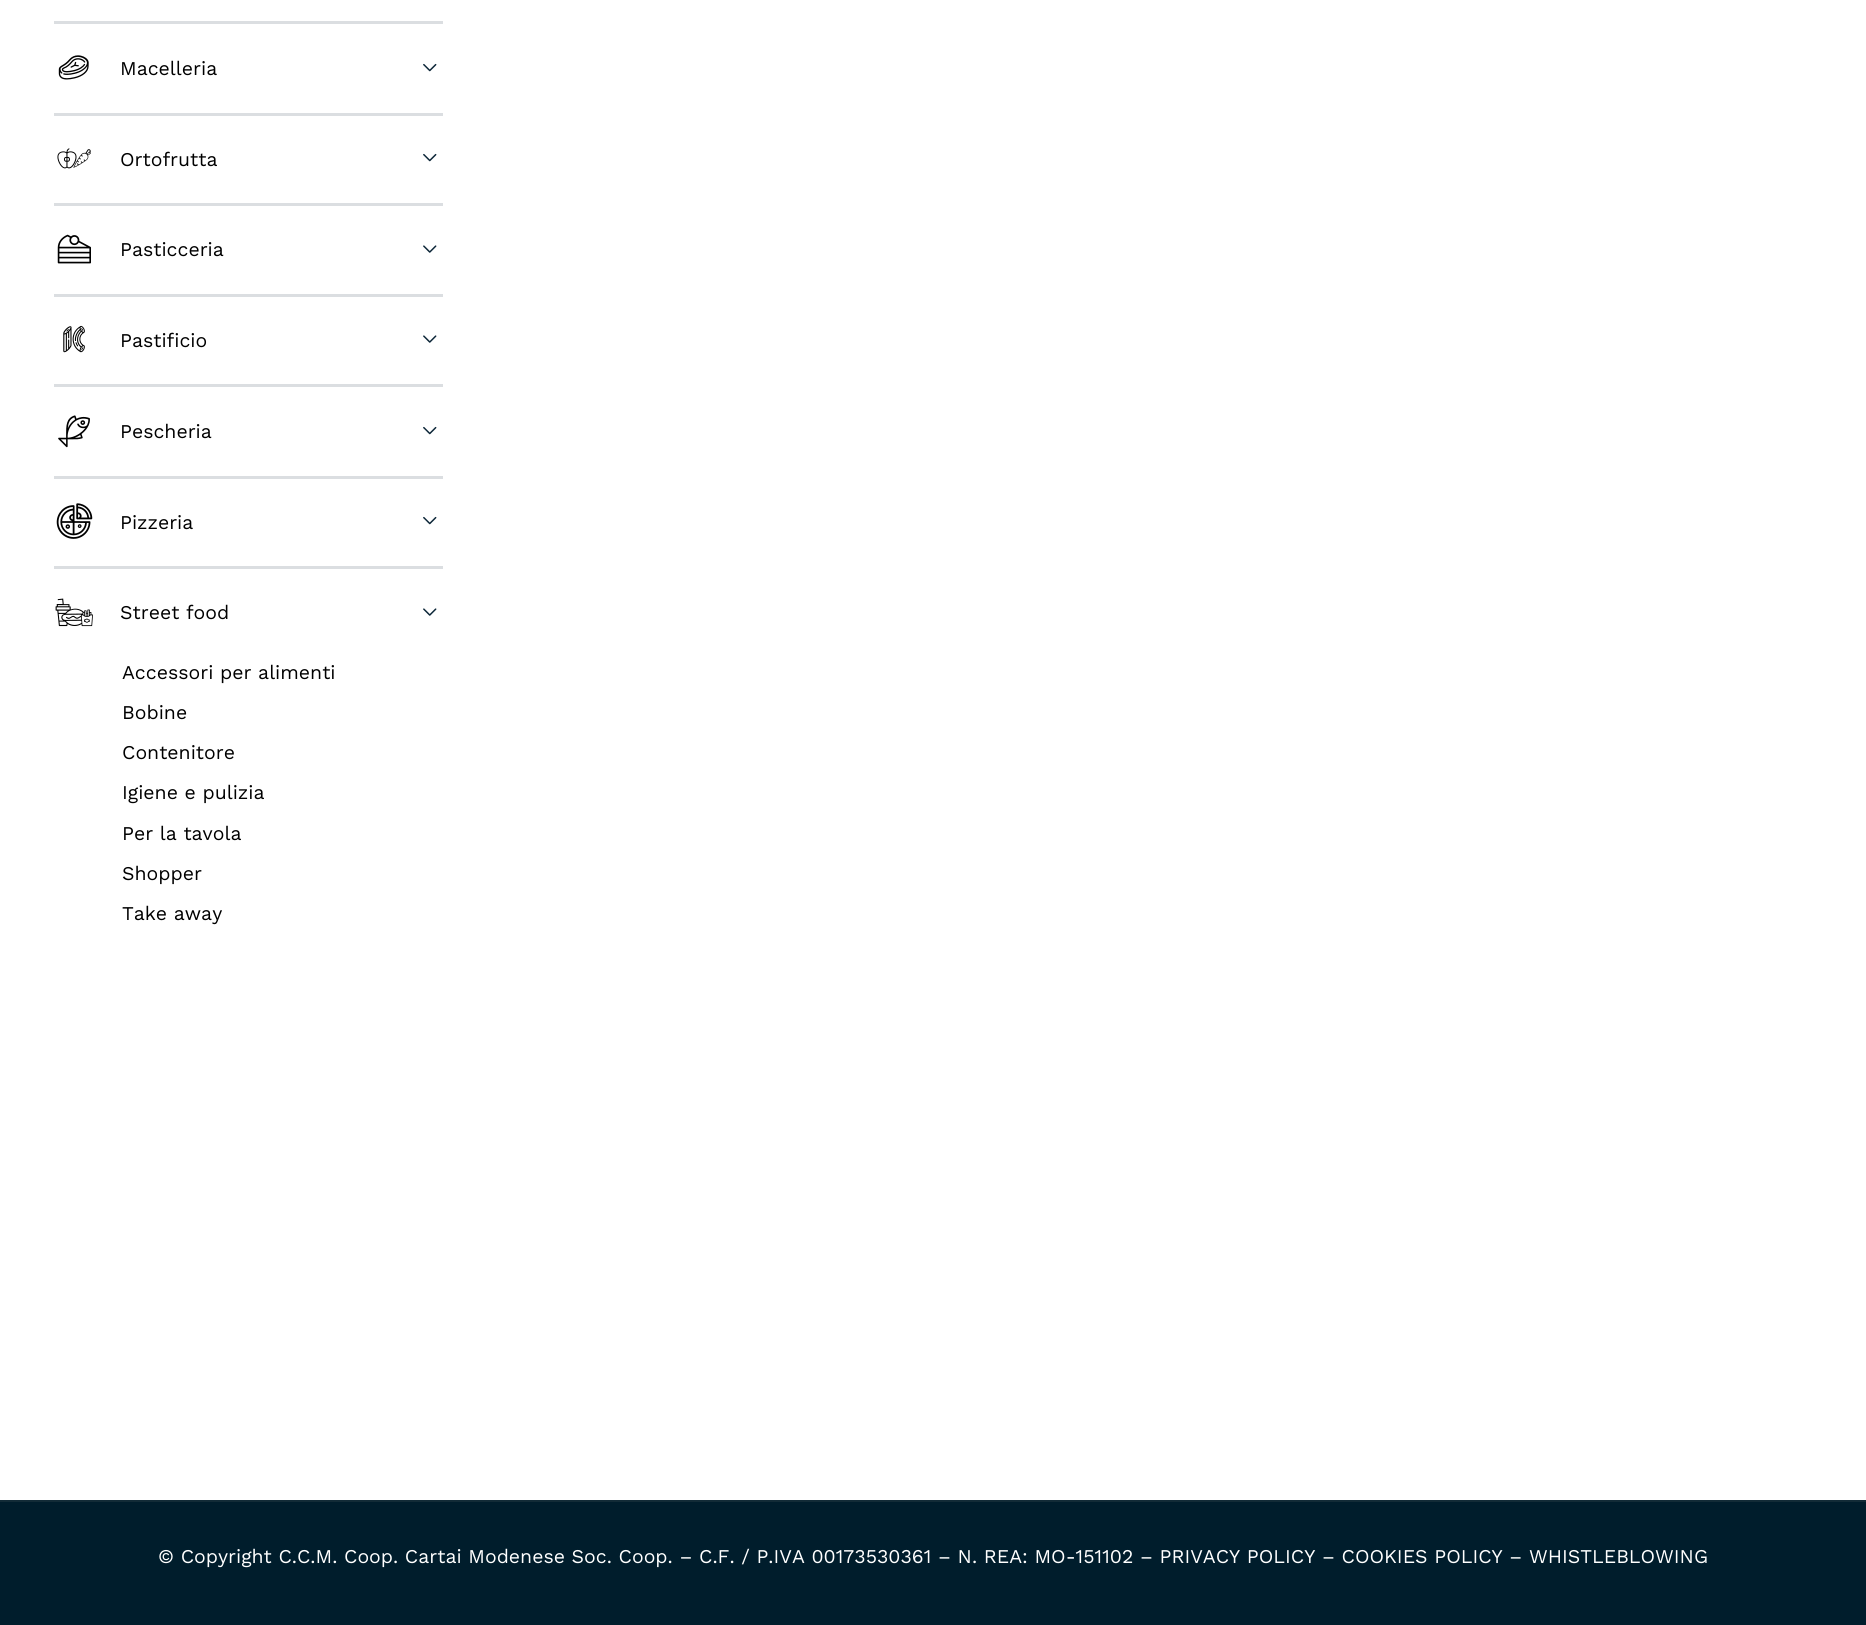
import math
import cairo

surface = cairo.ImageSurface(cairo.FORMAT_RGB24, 1866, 1625)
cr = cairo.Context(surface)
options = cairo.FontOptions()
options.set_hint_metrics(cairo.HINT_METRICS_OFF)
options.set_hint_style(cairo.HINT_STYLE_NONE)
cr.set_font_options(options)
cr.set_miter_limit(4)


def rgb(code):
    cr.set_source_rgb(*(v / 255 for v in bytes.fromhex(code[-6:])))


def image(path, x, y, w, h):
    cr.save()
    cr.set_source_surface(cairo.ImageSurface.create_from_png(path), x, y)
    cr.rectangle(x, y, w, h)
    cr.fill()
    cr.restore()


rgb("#ffffff")
cr.paint()
rgb("#dbdee1")
cr.rectangle(54, 21, 389, 3)
cr.fill()
cr.rectangle(54, 113, 389, 3)
cr.fill()
image("img/1.png", 58, 55, 31, 25)
image("img/2.png", 423, 63, 14, 9)
cr.rectangle(54, 203, 389, 3)
cr.fill()
image("img/3.png", 57, 148, 34, 21)
image("img/2.png", 423, 153, 14, 9)
cr.rectangle(54, 294, 389, 3)
cr.fill()
image("img/4.png", 57, 234, 34, 30)
image("img/5.png", 423, 245, 14, 8)
cr.rectangle(54, 384, 389, 3)
cr.fill()
image("img/6.png", 63, 325, 22, 28)
image("img/5.png", 423, 335, 14, 8)
cr.rectangle(54, 476, 389, 3)
cr.fill()
image("img/7.png", 58, 415, 32, 33)
image("img/2.png", 423, 426, 14, 9)
cr.rectangle(54, 566, 389, 3)
cr.fill()
image("img/8.png", 56, 503, 37, 36)
image("img/2.png", 423, 516, 14, 9)
image("img/9.png", 55, 598, 38, 29)
image("img/5.png", 423, 608, 14, 8)
rgb("#001d2c")
cr.rectangle(0, 1502, 1866, 123)
cr.fill()
rgb("#122b37")
cr.rectangle(0, 1500, 1866, 2)
cr.fill()
cr.select_font_face("Work Sans")
cr.set_font_size(19.5)
rgb("#000000")
for x, y, s in [
    (120, 75, "Macelleria"),
    (120, 166, "Ortofrutta"),
    (120, 256, "Pasticceria"),
    (120, 347, "Pastificio"),
    (120, 438, "Pescheria"),
    (120, 529, "Pizzeria"),
    (120, 619, "Street food"),
    (122, 679, "Accessori per alimenti"),
    (122, 719, "Bobine"),
    (122, 759, "Contenitore"),
    (122, 799, "Igiene e pulizia"),
    (122, 840, "Per la tavola"),
    (122, 880, "Shopper"),
    (122, 920, "Take away"),
]:
    cr.move_to(x, y)
    cr.show_text(s)
rgb("#ffffff")
cr.move_to(158, 1563)
cr.show_text("© Copyright C.C.M. Coop. Cartai Modenese Soc. Coop. – C.F. / P.IVA 00173530361 – N. REA: MO-151102 – PRIVACY POLICY – COOKIES POLICY – WHISTLEBLOWING")
surface.write_to_png("page.png")
